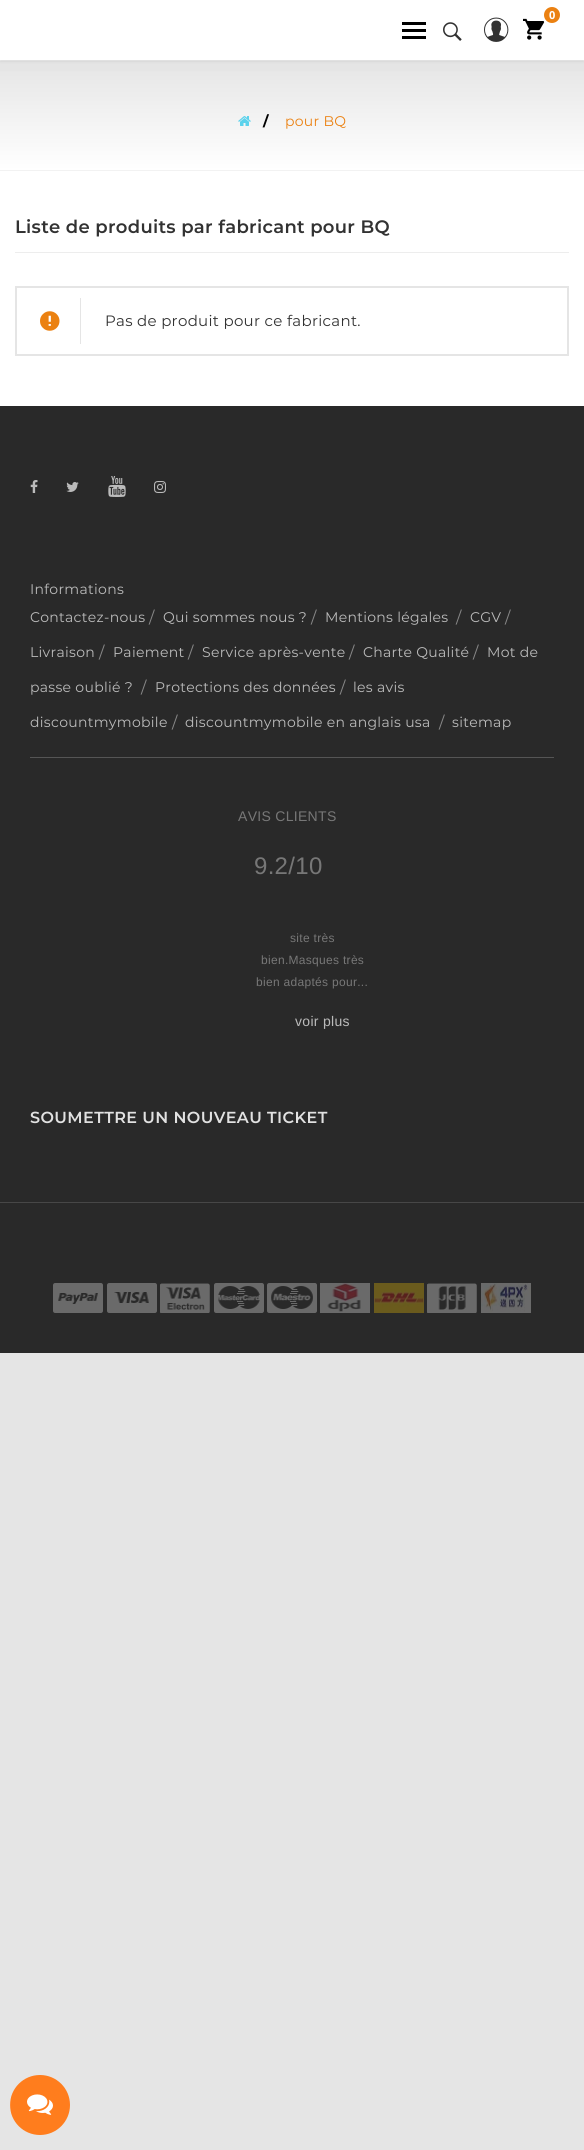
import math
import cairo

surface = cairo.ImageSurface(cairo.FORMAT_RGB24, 584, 2150)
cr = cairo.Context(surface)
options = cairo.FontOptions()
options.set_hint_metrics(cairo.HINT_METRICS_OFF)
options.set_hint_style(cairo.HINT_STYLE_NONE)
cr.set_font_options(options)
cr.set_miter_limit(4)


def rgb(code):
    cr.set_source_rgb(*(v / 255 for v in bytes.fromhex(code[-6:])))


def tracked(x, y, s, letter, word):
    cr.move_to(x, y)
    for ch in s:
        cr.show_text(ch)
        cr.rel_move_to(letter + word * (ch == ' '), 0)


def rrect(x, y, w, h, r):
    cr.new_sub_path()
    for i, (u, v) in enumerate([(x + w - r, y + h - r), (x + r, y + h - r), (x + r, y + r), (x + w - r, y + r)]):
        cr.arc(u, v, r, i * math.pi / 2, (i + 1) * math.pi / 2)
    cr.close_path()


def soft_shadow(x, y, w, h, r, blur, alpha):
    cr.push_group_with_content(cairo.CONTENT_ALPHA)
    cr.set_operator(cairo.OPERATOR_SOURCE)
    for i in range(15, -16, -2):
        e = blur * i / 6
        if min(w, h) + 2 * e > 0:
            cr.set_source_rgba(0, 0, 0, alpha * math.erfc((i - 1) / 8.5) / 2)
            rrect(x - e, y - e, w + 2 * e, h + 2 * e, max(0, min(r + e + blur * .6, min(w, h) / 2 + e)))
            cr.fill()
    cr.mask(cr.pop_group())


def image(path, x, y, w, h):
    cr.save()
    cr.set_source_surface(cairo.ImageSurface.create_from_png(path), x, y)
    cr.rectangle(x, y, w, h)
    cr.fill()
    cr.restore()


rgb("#e5e5e5")
cr.paint()
rgb("#f2f2f2")
cr.rectangle(0, 60, 584, 1)
cr.fill()
rgb("#000000")
soft_shadow(0, 1, 584, 60, 0, 1.5, 0.11)
rgb("#ffffff")
cr.rectangle(0, 0, 584, 60)
cr.fill()
image("img/1.png", 523, 18, 22, 22)
rgb("#eb8111")
cr.arc(552, 15, 9, 0, 2 * math.pi)
cr.fill_preserve()
rgb("#ffffff")
cr.stroke()
image("img/2.png", 443, 22, 19, 19)
image("img/3.png", 484, 17, 25, 25)
for x, y, w, h, color in [
    (402, 22, 24, 3, "#000000"),
    (402, 29, 24, 3, "#000000"),
    (402, 36, 24, 3, "#000000"),
]:
    rgb(color)
    cr.rectangle(x, y, w, h)
    cr.fill()
gradient = cairo.LinearGradient(292, 61, 292, 170)
gradient.add_color_stop_rgba(0, 0.898, 0.898, 0.898, 1)
gradient.add_color_stop_rgba(1, 1, 1, 1, 1)
cr.set_source(gradient)
cr.rectangle(0, 71, 584, 99)
cr.fill()
rgb("#f2f2f2")
cr.rectangle(0, 170, 584, 1)
cr.fill()
image("img/4.png", 238, 116, 13, 10)
rgb("#ffffff")
cr.rectangle(0, 171, 584, 235)
cr.fill()
rgb("#ededed")
cr.rectangle(15, 252, 554, 1)
cr.fill()
cr.rectangle(16, 287, 552, 68)
rgb("#e5e5e5")
cr.stroke()
image("img/5.png", 40, 311, 20, 20)
cr.rectangle(80, 298, 1, 46)
cr.fill()
rgb("#292929")
cr.rectangle(0, 406, 584, 947)
cr.fill()
image("img/6.png", 30, 480, 8, 13)
image("img/7.png", 66, 482, 13, 10)
image("img/8.png", 108, 476, 18, 21)
image("img/9.png", 154, 481, 12, 12)
rgb("#555555")
cr.rectangle(30, 757, 524, 1)
cr.fill()
rgb("#474747")
cr.rectangle(0, 1202, 584, 1)
cr.fill()
image("img/10.png", 53, 1283, 50, 30)
image("img/11.png", 107, 1283, 50, 30)
image("img/12.png", 160, 1283, 50, 30)
image("img/13.png", 214, 1283, 50, 30)
image("img/14.png", 267, 1283, 50, 30)
image("img/15.png", 320, 1283, 50, 30)
image("img/16.png", 374, 1283, 50, 30)
image("img/17.png", 427, 1283, 50, 30)
image("img/18.png", 481, 1283, 50, 30)
rgb("#ff7d1d")
cr.arc(40, 2105, 30, 0, 2 * math.pi)
cr.fill()
cr.set_source_rgba(1, 1, 1, 0.1)
cr.rectangle(10, 2097, 1, 16)
cr.fill()
image("img/19.png", 27, 2094, 26, 21)
cr.select_font_face("Noto Sans", cairo.FONT_SLANT_NORMAL, cairo.FONT_WEIGHT_BOLD)
cr.set_font_size(11)
rgb("#ffffff")
tracked(549, 19, "0", 0.3, 0)
cr.select_font_face("Montserrat", cairo.FONT_SLANT_NORMAL, cairo.FONT_WEIGHT_BOLD)
cr.set_font_size(14)
rgb("#000000")
tracked(263, 126, "/", 0.3, 0)
cr.select_font_face("Montserrat")
rgb("#eb8111")
tracked(285, 126, "pour BQ", 0.3, 0)
cr.select_font_face("Montserrat SemiBold")
cr.set_font_size(18)
rgb("#323232")
tracked(15, 233, "Liste de produits par fabricant pour BQ", 0.3, 0)
cr.select_font_face("Montserrat")
cr.set_font_size(15)
tracked(105, 326, "Pas de produit pour ce fabricant.", 0.3, 0)
cr.set_font_size(14)
rgb("#bbbbbb")
tracked(30, 594, "Informations", 0.3, 0)
tracked(30, 622, "Contactez-nous", 0.3, 0)
cr.set_font_size(16)
rgb("#888888")
tracked(149, 623, "/", 0.3, 0)
cr.set_font_size(14)
rgb("#bbbbbb")
tracked(163, 622, "Qui sommes nous ?", 0.3, 0)
cr.set_font_size(16)
rgb("#888888")
tracked(311, 623, "/", 0.3, 0)
cr.set_font_size(14)
rgb("#bbbbbb")
tracked(325, 622, "Mentions légales", 0.3, 0)
cr.set_font_size(16)
rgb("#888888")
tracked(456, 623, "/", 0.3, 0)
cr.set_font_size(14)
rgb("#bbbbbb")
tracked(470, 622, "CGV", 0.3, 0)
cr.set_font_size(16)
rgb("#888888")
tracked(505, 623, "/", 0.3, 0)
cr.set_font_size(14)
rgb("#bbbbbb")
tracked(30, 657, "Livraison", 0.3, 0)
cr.set_font_size(16)
rgb("#888888")
tracked(99, 658, "/", 0.3, 0)
cr.set_font_size(14)
rgb("#bbbbbb")
tracked(113, 657, "Paiement", 0.3, 0)
cr.set_font_size(16)
rgb("#888888")
tracked(188, 658, "/", 0.3, 0)
cr.set_font_size(14)
rgb("#bbbbbb")
tracked(202, 657, "Service après-vente", 0.3, 0)
cr.set_font_size(16)
rgb("#888888")
tracked(349, 658, "/", 0.3, 0)
cr.set_font_size(14)
rgb("#bbbbbb")
tracked(363, 657, "Charte Qualité", 0.3, 0)
cr.set_font_size(16)
rgb("#888888")
tracked(473, 658, "/", 0.3, 0)
cr.set_font_size(14)
rgb("#bbbbbb")
tracked(487, 657, "Mot de", 0.3, 0)
tracked(30, 692, "passe oublié ?", 0.3, 0)
cr.set_font_size(16)
rgb("#888888")
tracked(141, 693, "/", 0.3, 0)
cr.set_font_size(14)
rgb("#bbbbbb")
tracked(155, 692, "Protections des données", 0.3, 0)
cr.set_font_size(16)
rgb("#888888")
tracked(340, 693, "/", 0.3, 0)
cr.set_font_size(14)
rgb("#bbbbbb")
tracked(353, 692, "les avis", 0.3, 0)
tracked(30, 727, "discountmymobile", 0.3, 0)
cr.set_font_size(16)
rgb("#888888")
tracked(172, 728, "/", 0.3, 0)
cr.set_font_size(14)
rgb("#bbbbbb")
tracked(185, 727, "discountmymobile en anglais usa", 0.3, 0)
cr.set_font_size(16)
rgb("#888888")
tracked(439, 728, "/", 0.3, 0)
cr.set_font_size(14)
rgb("#bbbbbb")
tracked(452, 727, "sitemap", 0.3, 0)
cr.select_font_face("Liberation Sans")
rgb("#777777")
tracked(238, 821, "AVIS CLIENTS", 0.3, 0)
cr.set_font_size(24)
tracked(254, 874, "9.2/10", 0.3, 0)
cr.set_font_size(12)
for x, y, s in [
    (290, 942, "site très"),
    (261, 964, "bien.Masques très"),
    (256, 986, "bien adaptés pour..."),
]:
    tracked(x, y, s, 0.3, 0)
cr.set_font_size(14)
rgb("#bbbbbb")
tracked(295, 1026, "voir plus", 0.3, 0)
cr.select_font_face("Montserrat SemiBold")
cr.set_font_size(16)
rgb("#e1e1e1")
tracked(30, 1123, "SOUMETTRE UN NOUVEAU TICKET", 0.4, 0)
surface.write_to_png("page.png")
